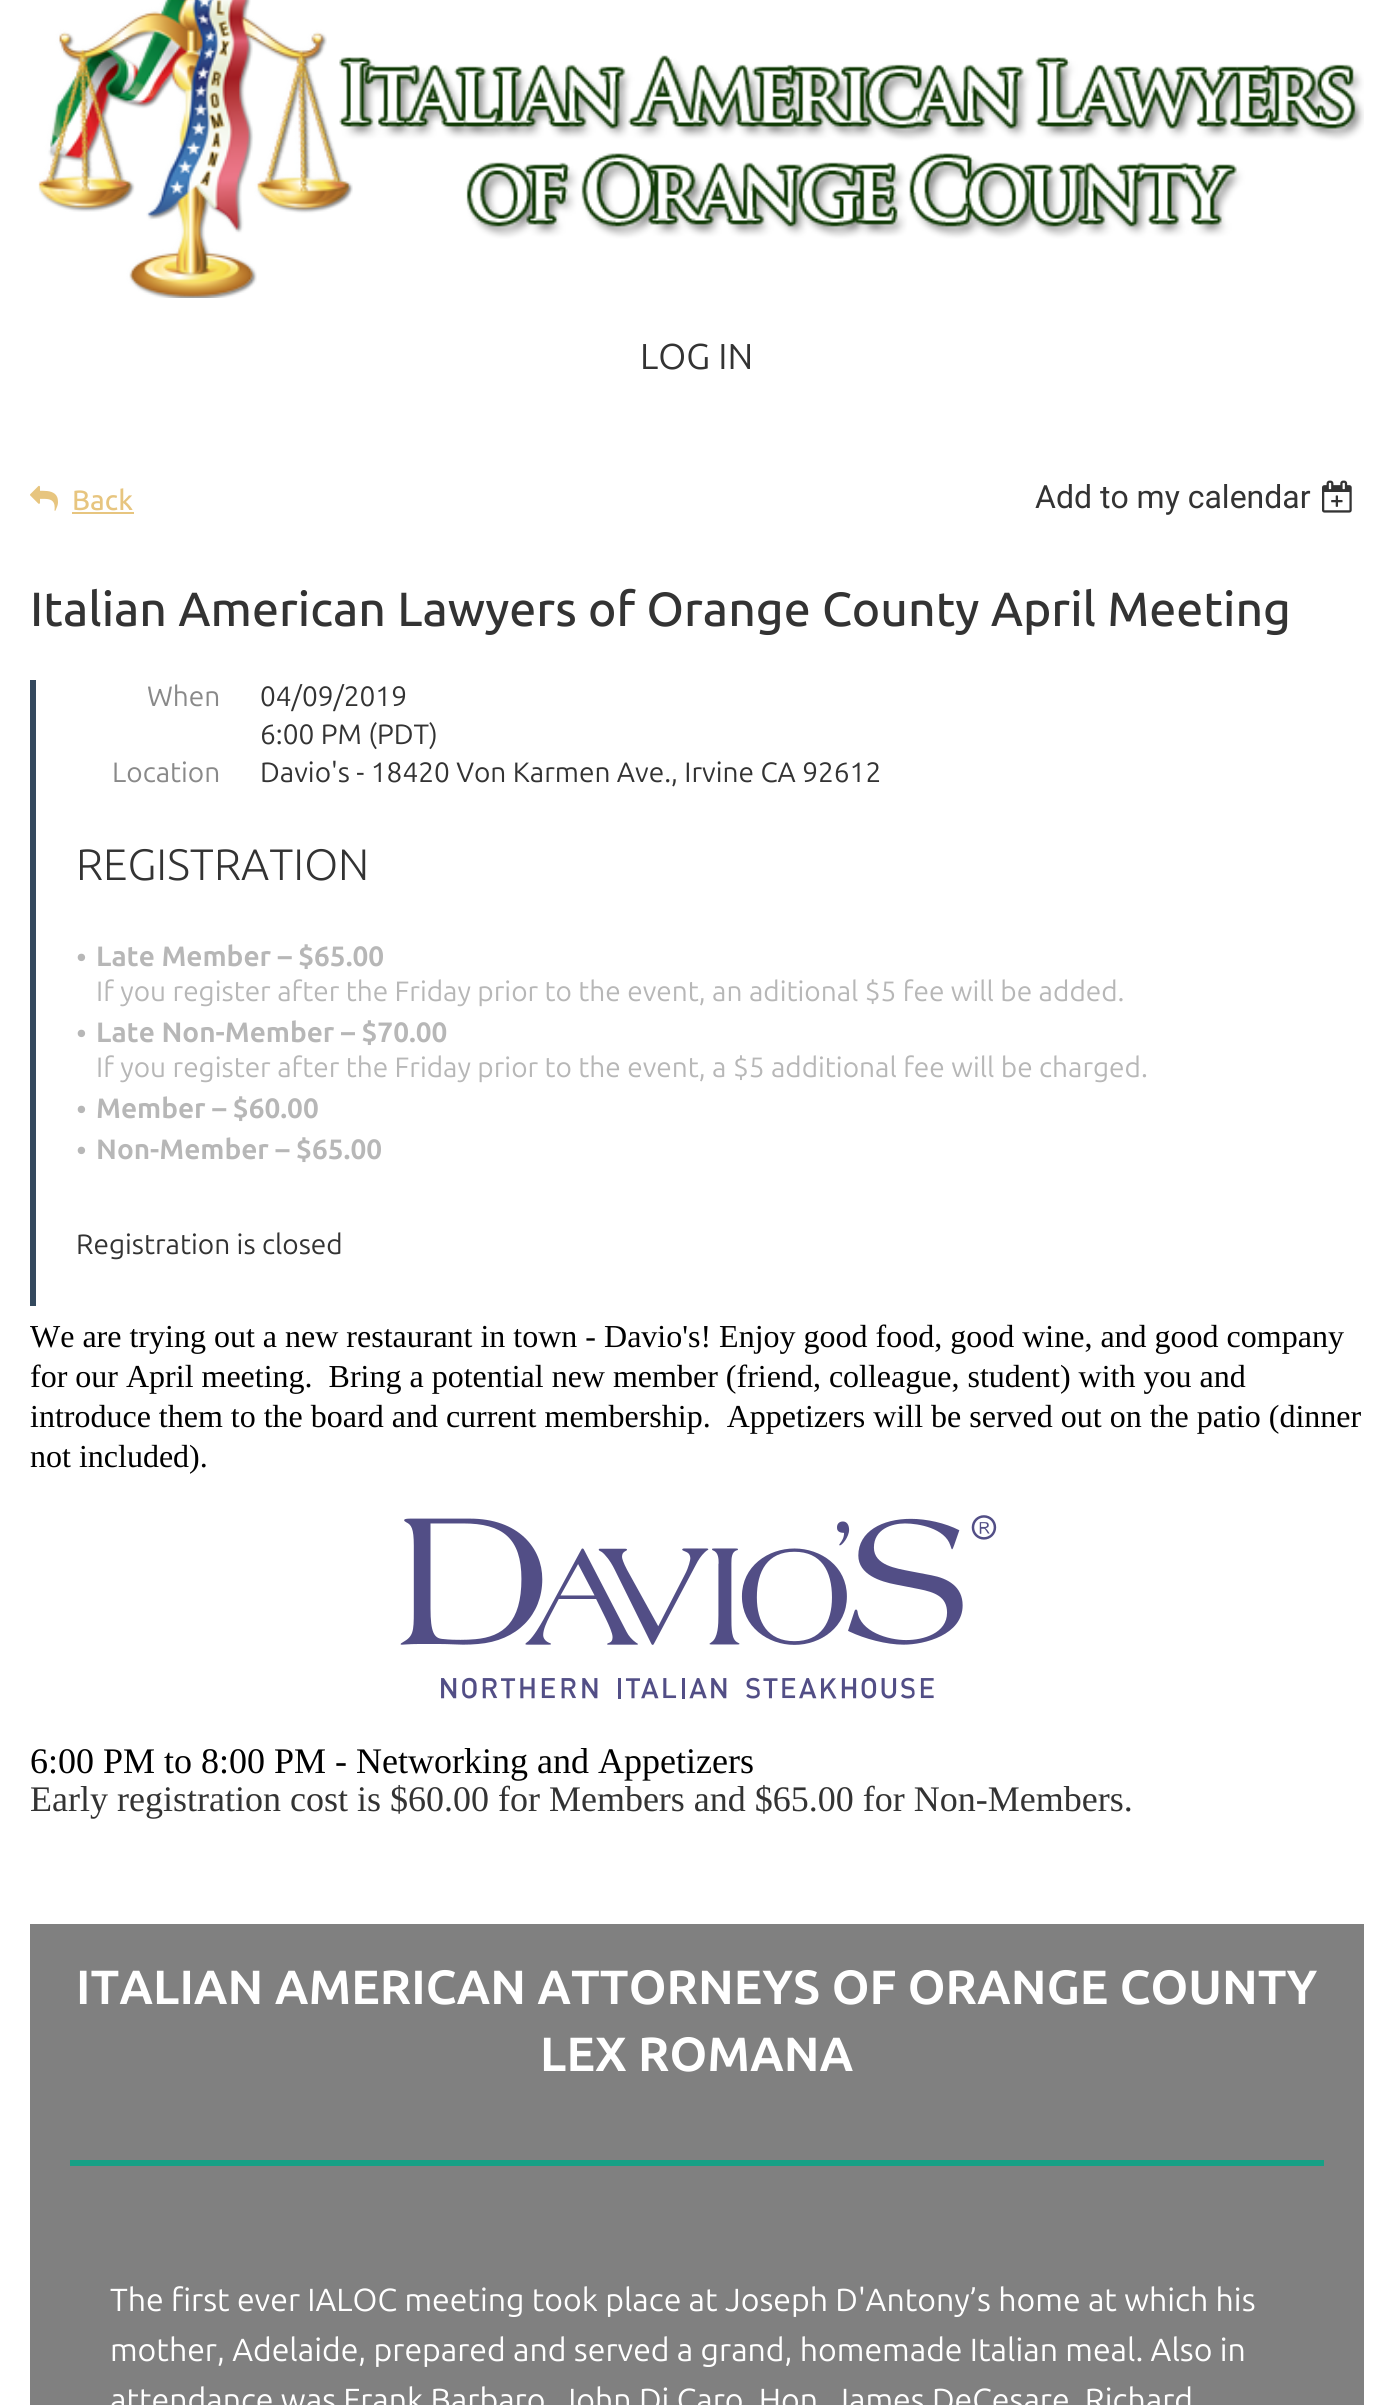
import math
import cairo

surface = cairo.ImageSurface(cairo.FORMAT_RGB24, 1394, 2405)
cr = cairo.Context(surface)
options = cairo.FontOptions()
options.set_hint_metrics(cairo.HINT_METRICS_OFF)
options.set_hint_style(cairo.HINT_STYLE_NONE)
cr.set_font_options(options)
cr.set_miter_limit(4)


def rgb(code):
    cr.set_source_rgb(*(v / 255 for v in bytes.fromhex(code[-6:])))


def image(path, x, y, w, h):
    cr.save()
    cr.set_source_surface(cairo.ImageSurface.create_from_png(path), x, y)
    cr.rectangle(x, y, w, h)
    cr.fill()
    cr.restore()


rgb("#ffffff")
cr.paint()
image("img/1.png", 38, 0, 1326, 298)
image("img/2.png", 30, 485, 28, 26)
rgb("#e7c57f")
cr.rectangle(72, 512, 62, 2)
cr.fill()
image("img/3.png", 1322, 480, 30, 33)
rgb("#34495e")
cr.rectangle(30, 680, 6, 626)
cr.fill()
image("img/4.png", 400, 1515, 597, 184)
rgb("#808080")
cr.rectangle(30, 1924, 1334, 481)
cr.fill()
rgb("#16a085")
cr.rectangle(70, 2160, 1254, 6)
cr.fill()
cr.select_font_face("Ubuntu")
cr.set_font_size(36)
rgb("#333333")
cr.move_to(640, 369)
cr.show_text("LOG IN")
cr.select_font_face("Ubuntu Medium")
cr.set_font_size(28)
rgb("#e7c57f")
cr.move_to(72, 510)
cr.show_text("Back")
cr.select_font_face("Roboto")
cr.set_font_size(32)
rgb("#333333")
cr.move_to(1035, 508)
cr.show_text("Add to my calendar")
cr.select_font_face("Ubuntu Medium")
cr.set_font_size(48)
cr.move_to(30, 626)
cr.show_text("Italian American Lawyers of Orange County April Meeting")
cr.select_font_face("Ubuntu")
cr.set_font_size(28)
rgb("#898989")
cr.move_to(147, 706)
cr.show_text("When")
rgb("#333333")
cr.move_to(260, 706)
cr.show_text("04/09/2019")
cr.move_to(260, 744)
cr.show_text("6:00 PM (PDT)")
rgb("#898989")
cr.move_to(112, 782)
cr.show_text("Location")
rgb("#333333")
cr.move_to(260, 782)
cr.show_text("Davio's - 18420 Von Karmen Ave., Irvine CA 92612")
cr.select_font_face("Ubuntu Light")
cr.set_font_size(44)
cr.move_to(76, 880)
cr.show_text("REGISTRATION")
cr.select_font_face("Ubuntu")
cr.set_font_size(30)
rgb("#b7b7b7")
cr.move_to(76, 968)
cr.show_text("•")
cr.select_font_face("Ubuntu", cairo.FONT_SLANT_NORMAL, cairo.FONT_WEIGHT_BOLD)
cr.set_font_size(28)
cr.move_to(96, 966)
cr.show_text("Late Member – $65.00")
cr.select_font_face("Ubuntu")
cr.move_to(96, 1001)
cr.show_text("If you register after the Friday prior to the event, an aditional $5 fee will be added.")
cr.set_font_size(30)
cr.move_to(76, 1044)
cr.show_text("•")
cr.select_font_face("Ubuntu", cairo.FONT_SLANT_NORMAL, cairo.FONT_WEIGHT_BOLD)
cr.set_font_size(28)
cr.move_to(96, 1042)
cr.show_text("Late Non-Member – $70.00")
cr.select_font_face("Ubuntu")
cr.move_to(96, 1077)
cr.show_text("If you register after the Friday prior to the event, a $5 additional fee will be charged.")
cr.set_font_size(30)
cr.move_to(76, 1120)
cr.show_text("•")
cr.select_font_face("Ubuntu", cairo.FONT_SLANT_NORMAL, cairo.FONT_WEIGHT_BOLD)
cr.set_font_size(28)
cr.move_to(96, 1118)
cr.show_text("Member – $60.00")
cr.select_font_face("Ubuntu")
cr.set_font_size(30)
cr.move_to(76, 1161)
cr.show_text("•")
cr.select_font_face("Ubuntu", cairo.FONT_SLANT_NORMAL, cairo.FONT_WEIGHT_BOLD)
cr.set_font_size(28)
cr.move_to(96, 1159)
cr.show_text("Non-Member – $65.00")
cr.select_font_face("Ubuntu")
rgb("#333333")
cr.move_to(76, 1254)
cr.show_text("Registration is closed")
cr.select_font_face("Liberation Serif")
cr.set_font_size(32)
rgb("#000000")
for x, y, s in [
    (30, 1347, "We are trying out a new restaurant in town - Davio's! Enjoy good food, good wine, and good company"),
    (30, 1387, "for our April meeting.  Bring a potential new member (friend, colleague, student) with you and"),
    (30, 1427, "introduce them to the board and current membership.  Appetizers will be served out on the patio (dinner"),
    (30, 1467, "not included)."),
]:
    cr.move_to(x, y)
    cr.show_text(s)
cr.set_font_size(36)
cr.move_to(30, 1773)
cr.show_text("6:00 PM to 8:00 PM - Networking and Appetizers")
rgb("#333333")
cr.move_to(30, 1811)
cr.show_text("Early registration cost is $60.00 for Members and $65.00 for Non-Members.")
cr.select_font_face("Ubuntu", cairo.FONT_SLANT_NORMAL, cairo.FONT_WEIGHT_BOLD)
cr.set_font_size(48)
rgb("#ffffff")
cr.move_to(76, 2004)
cr.show_text("ITALIAN AMERICAN ATTORNEYS OF ORANGE COUNTY")
cr.move_to(540, 2071)
cr.show_text("LEX ROMANA")
cr.select_font_face("Ubuntu")
cr.set_font_size(32)
for x, y, s in [
    (110, 2311, "The first ever IALOC meeting took place at Joseph D'Antony’s home at which his"),
    (110, 2361, "mother, Adelaide, prepared and served a grand, homemade Italian meal. Also in"),
    (110, 2411, "attendance was Frank Barbaro, John Di Caro, Hon. James DeCesare, Richard"),
]:
    cr.move_to(x, y)
    cr.show_text(s)
surface.write_to_png("page.png")
